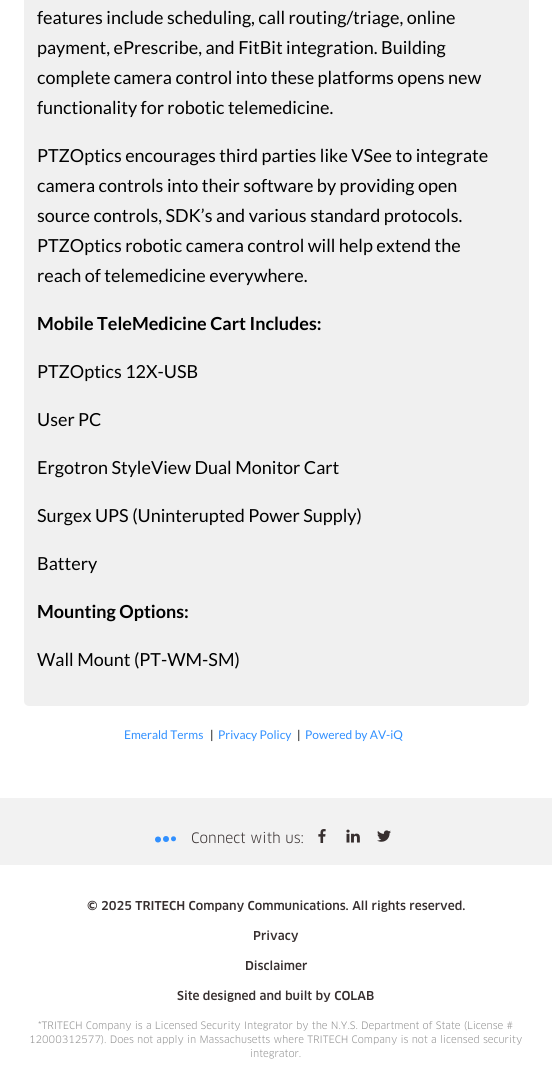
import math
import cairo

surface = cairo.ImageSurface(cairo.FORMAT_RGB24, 552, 1091)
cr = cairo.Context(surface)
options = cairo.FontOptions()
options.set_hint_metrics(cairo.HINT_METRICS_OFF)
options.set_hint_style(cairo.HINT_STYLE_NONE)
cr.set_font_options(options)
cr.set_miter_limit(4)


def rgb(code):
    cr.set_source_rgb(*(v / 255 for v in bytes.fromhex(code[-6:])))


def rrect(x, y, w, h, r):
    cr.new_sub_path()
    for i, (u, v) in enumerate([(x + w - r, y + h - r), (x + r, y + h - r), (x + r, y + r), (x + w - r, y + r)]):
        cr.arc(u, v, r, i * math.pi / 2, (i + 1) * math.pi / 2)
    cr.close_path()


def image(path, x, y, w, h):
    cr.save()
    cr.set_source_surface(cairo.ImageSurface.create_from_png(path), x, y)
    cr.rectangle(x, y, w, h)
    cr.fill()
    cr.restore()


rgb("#ffffff")
cr.paint()
rgb("#f0f0f0")
rrect(24, -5, 505, 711, 5)
cr.fill()
rgb("#f2f2f2")
cr.rectangle(0, 798, 552, 67)
cr.fill()
rgb("#3190ff")
cr.arc(158, 839.5, 3, 0, 2 * math.pi)
cr.fill()
cr.arc(173.5, 838.8, 2.5, 0, 2 * math.pi)
cr.fill()
cr.arc(166, 839, 3, 0, 2 * math.pi)
cr.fill()
image("img/1.png", 318, 829, 8, 14)
image("img/2.png", 346, 829, 14, 14)
image("img/3.png", 377, 830, 14, 12)
cr.select_font_face("Lato")
cr.set_font_size(18)
rgb("#000000")
for x, y, s in [
    (37, 24, "features include scheduling, call routing/triage, online"),
    (37, 54, "payment, ePrescribe, and FitBit integration. Building"),
    (37, 84, "complete camera control into these platforms opens new"),
    (37, 114, "functionality for robotic telemedicine."),
    (37, 162, "PTZOptics encourages third parties like VSee to integrate"),
    (37, 192, "camera controls into their software by providing open"),
    (37, 222, "source controls, SDK’s and various standard protocols."),
    (37, 252, "PTZOptics robotic camera control will help extend the"),
    (37, 282, "reach of telemedicine everywhere."),
]:
    cr.move_to(x, y)
    cr.show_text(s)
cr.select_font_face("Lato", cairo.FONT_SLANT_NORMAL, cairo.FONT_WEIGHT_BOLD)
cr.move_to(37, 330)
cr.show_text("Mobile TeleMedicine Cart Includes:")
cr.select_font_face("Lato")
for x, y, s in [
    (37, 378, "PTZOptics 12X-USB"),
    (37, 426, "User PC"),
    (37, 474, "Ergotron StyleView Dual Monitor Cart"),
    (37, 522, "Surgex UPS (Uninterupted Power Supply)"),
    (37, 570, "Battery"),
]:
    cr.move_to(x, y)
    cr.show_text(s)
cr.select_font_face("Lato", cairo.FONT_SLANT_NORMAL, cairo.FONT_WEIGHT_BOLD)
cr.move_to(37, 618)
cr.show_text("Mounting Options:")
cr.select_font_face("Lato")
cr.move_to(37, 666)
cr.show_text("Wall Mount (PT-WM-SM)")
cr.set_font_size(12)
rgb("#3190ff")
cr.move_to(124, 739)
cr.show_text("Emerald Terms")
rgb("#000000")
cr.move_to(210, 739)
cr.show_text("|")
rgb("#3190ff")
cr.move_to(218, 739)
cr.show_text("Privacy Policy")
rgb("#000000")
cr.move_to(297, 739)
cr.show_text("|")
rgb("#3190ff")
cr.move_to(305, 739)
cr.show_text("Powered by AV-iQ")
cr.select_font_face("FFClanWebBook")
cr.set_font_size(14)
rgb("#372f2f")
cr.move_to(191, 843)
cr.show_text("Connect with us:")
cr.select_font_face("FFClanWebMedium")
cr.set_font_size(12)
for x, y, s in [
    (87, 910, "© 2025 TRITECH Company Communications. All rights reserved."),
    (253, 940, "Privacy"),
    (245, 970, "Disclaimer"),
    (177, 1000, "Site designed and built by COLAB"),
]:
    cr.move_to(x, y)
    cr.show_text(s)
cr.select_font_face("FFClanWebBook")
cr.set_font_size(10)
rgb("#919191")
for x, y, s in [
    (38, 1029, "*TRITECH Company is a Licensed Security Integrator by the N.Y.S. Department of State (License #"),
    (29, 1043, "12000312577). Does not apply in Massachusetts where TRITECH Company is not a licensed security"),
    (250, 1057, "integrator."),
]:
    cr.move_to(x, y)
    cr.show_text(s)
surface.write_to_png("page.png")
